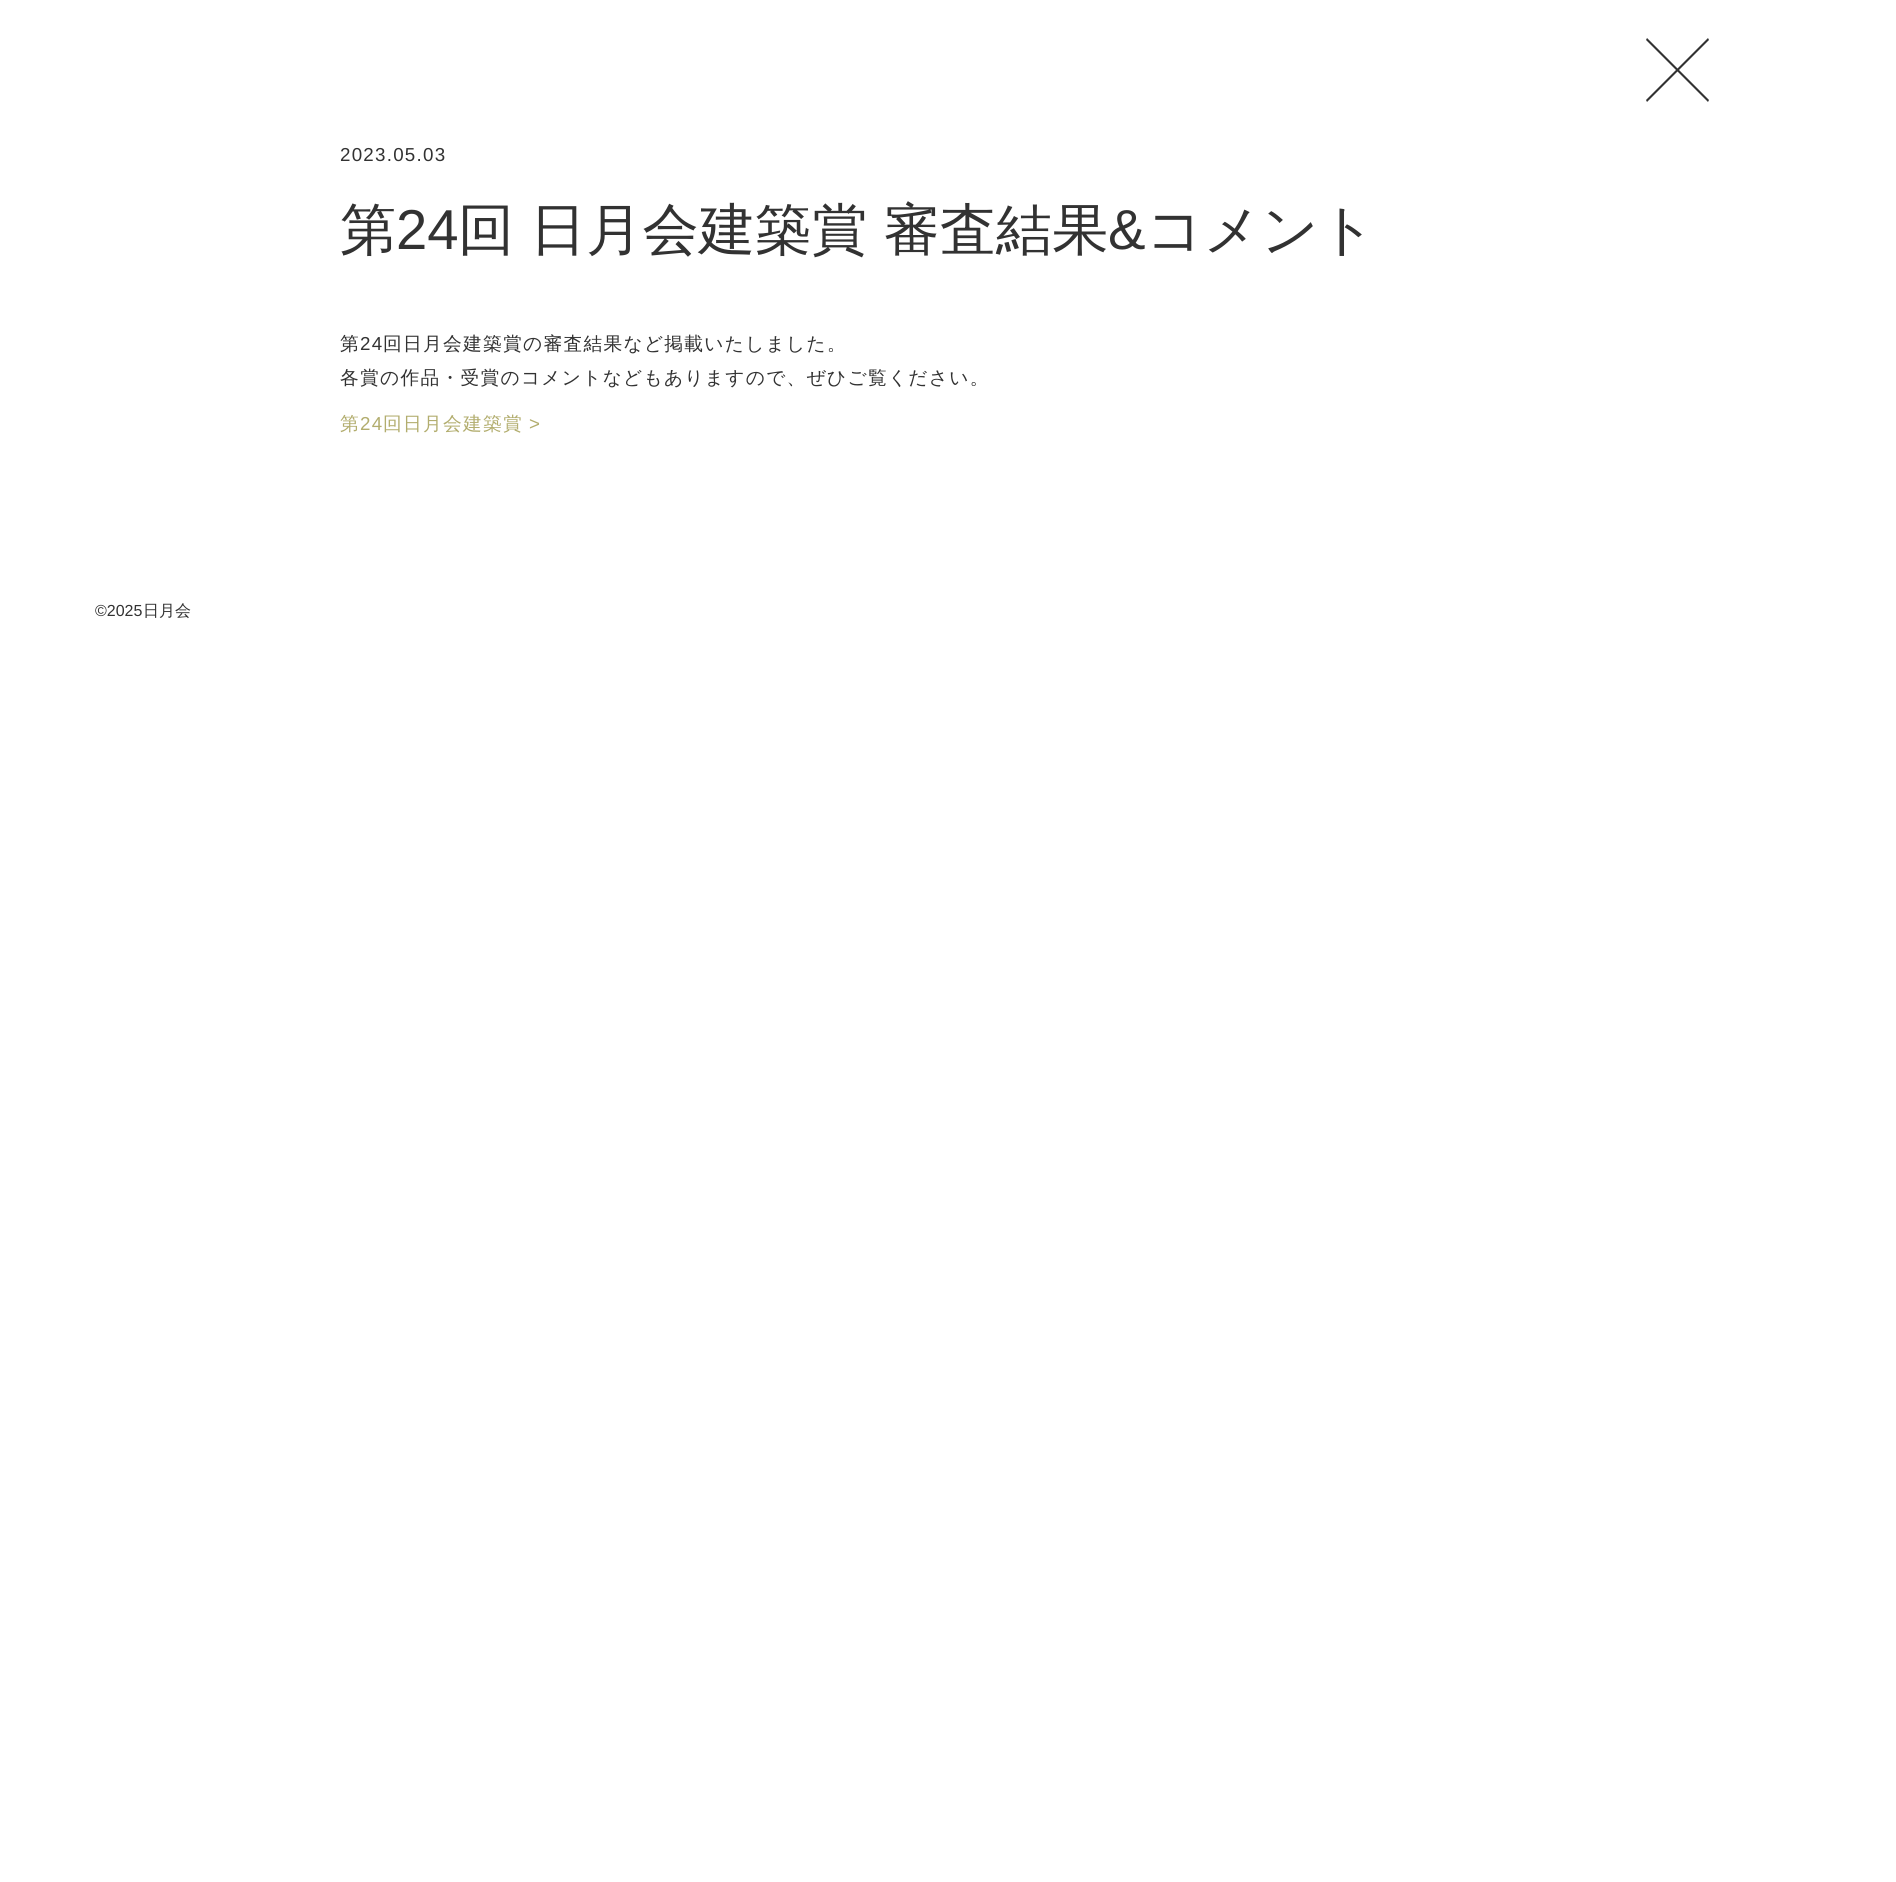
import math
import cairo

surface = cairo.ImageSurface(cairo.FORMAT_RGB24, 1896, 1882)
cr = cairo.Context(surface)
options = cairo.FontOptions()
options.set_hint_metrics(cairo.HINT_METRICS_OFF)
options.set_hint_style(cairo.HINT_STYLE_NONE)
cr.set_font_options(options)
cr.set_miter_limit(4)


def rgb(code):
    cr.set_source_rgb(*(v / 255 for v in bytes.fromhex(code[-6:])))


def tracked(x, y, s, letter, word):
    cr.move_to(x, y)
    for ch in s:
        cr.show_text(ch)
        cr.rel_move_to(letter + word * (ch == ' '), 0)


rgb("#ffffff")
cr.paint()
rgb("#323232")
cr.new_path()
cr.move_to(1647, 38)
cr.line_to(1709, 100)
cr.line_to(1708, 102)
cr.line_to(1646, 40)
cr.close_path()
cr.fill()
cr.new_path()
cr.move_to(1709, 40)
cr.line_to(1647, 102)
cr.line_to(1646, 100)
cr.line_to(1708, 38)
cr.close_path()
cr.fill()
cr.select_font_face("Liberation Sans")
cr.set_font_size(18.75)
tracked(340, 161, "2023.05.03", 1.25, 0)
cr.select_font_face("WenQuanYi Zen Hei Medium")
cr.set_font_size(56.25)
cr.move_to(340, 249)
cr.show_text("第")
cr.select_font_face("Liberation Sans")
cr.move_to(396, 249)
cr.show_text("24")
cr.select_font_face("WenQuanYi Zen Hei Medium")
tracked(458, 249, "回 日月会建築賞 審査結果", 0, -1)
cr.select_font_face("Liberation Sans")
cr.move_to(1108, 249)
cr.show_text("&")
cr.select_font_face("WenQuanYi Zen Hei Medium")
cr.move_to(1146, 249)
cr.show_text("コメント")
cr.set_font_size(18.75)
tracked(340, 350, "第", 1.25, 0)
cr.select_font_face("Liberation Sans")
tracked(360, 350, "24", 1.25, 0)
cr.select_font_face("WenQuanYi Zen Hei Medium")
tracked(383, 350, "回日月会建築賞の審査結果など掲載いたしました。", 1.25, 0)
tracked(340, 384, "各賞の作品・受賞のコメントなどもありますので、ぜひご覧ください。", 1.25, 0)
rgb("#b2ad6e")
tracked(340, 430, "第", 1.25, 0)
cr.select_font_face("Liberation Sans")
tracked(360, 430, "24", 1.25, 0)
cr.select_font_face("WenQuanYi Zen Hei Medium")
tracked(383, 430, "回日月会建築賞", 1.25, 0)
cr.select_font_face("Liberation Sans")
tracked(529, 430, ">", 1.25, 0)
cr.set_font_size(16)
rgb("#323232")
cr.move_to(95, 616)
cr.show_text("©2025")
cr.select_font_face("WenQuanYi Zen Hei Medium")
cr.move_to(143, 616)
cr.show_text("日月会")
surface.write_to_png("page.png")
